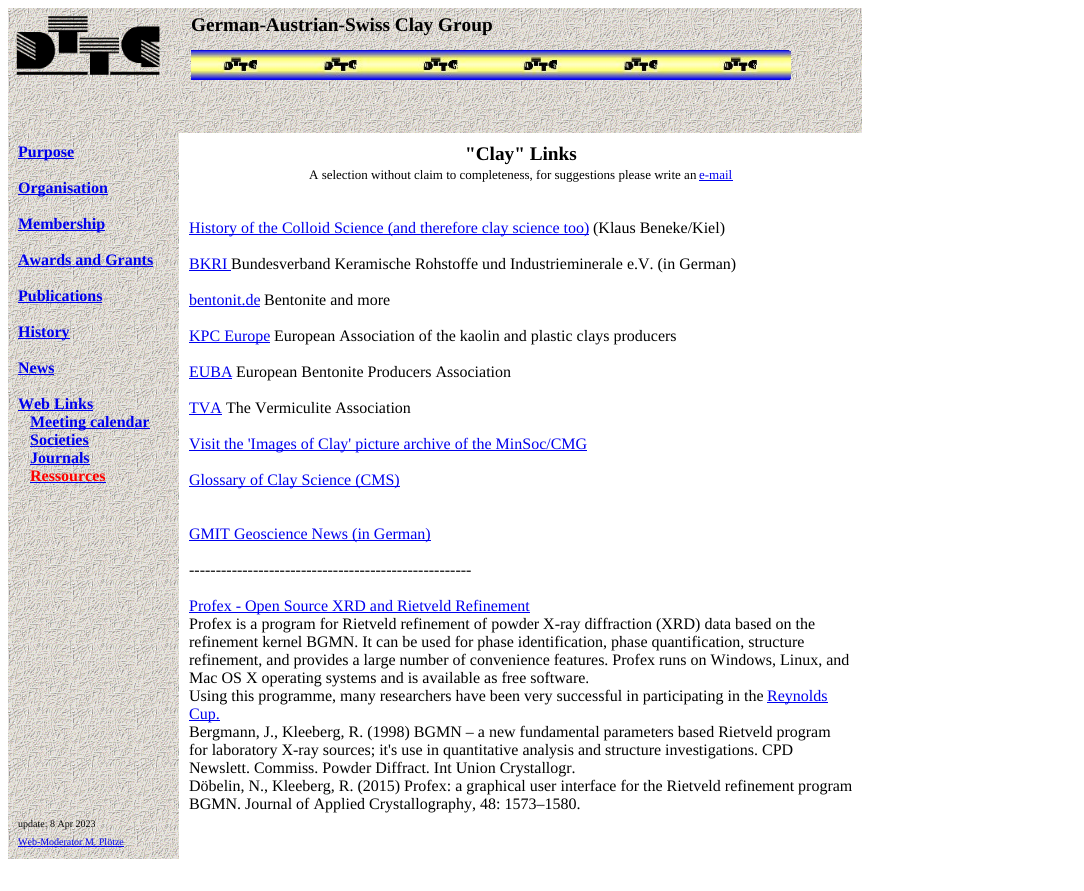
import math
import cairo

surface = cairo.ImageSurface(cairo.FORMAT_RGB24, 1084, 891)
cr = cairo.Context(surface)
options = cairo.FontOptions()
options.set_hint_metrics(cairo.HINT_METRICS_OFF)
options.set_hint_style(cairo.HINT_STYLE_NONE)
cr.set_font_options(options)
cr.set_miter_limit(4)


def rgb(code):
    cr.set_source_rgb(*(v / 255 for v in bytes.fromhex(code[-6:])))


def image(path, x, y, w, h):
    cr.save()
    cr.set_source_surface(cairo.ImageSurface.create_from_png(path), x, y)
    cr.rectangle(x, y, w, h)
    cr.fill()
    cr.restore()


rgb("#ffffff")
cr.paint()
image("img/1.png", 8, 8, 854, 125)
image("img/2.png", 16, 16, 144, 59)
image("img/3.png", 191, 50, 600, 30)
image("img/4.png", 8, 133, 171, 629)
for x, y, w, h, color in [
    (18, 158, 56, 1, "#0000ee"),
    (18, 194, 90, 1, "#0000ee"),
    (18, 230, 87, 1, "#0000ee"),
    (18, 266, 135, 1, "#0000ee"),
    (18, 302, 84, 1, "#0000ee"),
    (18, 338, 52, 1, "#0000ee"),
    (18, 374, 36, 1, "#0000ee"),
    (18, 410, 75, 1, "#0000ee"),
    (30, 428, 120, 1, "#0000ee"),
    (30, 446, 59, 1, "#0000ee"),
    (30, 464, 60, 1, "#0000ee"),
    (30, 482, 76, 1, "#0000ee"),
    (699, 180, 34, 1, "#0000ee"),
    (189, 234, 400, 1, "#0000ee"),
    (189, 270, 42, 1, "#0000ee"),
    (189, 306, 71, 1, "#0000ee"),
    (189, 342, 81, 1, "#0000ee"),
    (189, 378, 43, 1, "#0000ee"),
    (189, 414, 33, 1, "#0000ee"),
    (189, 450, 398, 1, "#0000ee"),
    (189, 486, 211, 1, "#0000ee"),
    (189, 540, 242, 1, "#0000ee"),
    (189, 612, 341, 1, "#0000ee"),
    (767, 702, 61, 1, "#0000ee"),
    (189, 720, 31, 1, "#0000ee"),
]:
    rgb(color)
    cr.rectangle(x, y, w, h)
    cr.fill()
image("img/5.png", 8, 762, 171, 97)
cr.rectangle(18, 846, 106, 1)
cr.fill()
cr.select_font_face("Liberation Serif", cairo.FONT_SLANT_NORMAL, cairo.FONT_WEIGHT_BOLD)
cr.set_font_size(19.25)
rgb("#000000")
cr.move_to(191, 31)
cr.show_text("German-Austrian-Swiss Clay Group")
cr.set_font_size(16)
rgb("#0000ee")
for x, y, s in [
    (18, 157, "Purpose"),
    (18, 193, "Organisation"),
    (18, 229, "Membership"),
    (18, 265, "Awards and Grants"),
    (18, 301, "Publications"),
    (18, 337, "History"),
    (18, 373, "News"),
    (18, 409, "Web Links"),
    (30, 427, "Meeting calendar"),
    (30, 445, "Societies"),
    (30, 463, "Journals"),
]:
    cr.move_to(x, y)
    cr.show_text(s)
rgb("#ff0000")
cr.move_to(30, 481)
cr.show_text("Ressources")
cr.set_font_size(19.25)
rgb("#000000")
cr.move_to(465, 160)
cr.show_text("\"Clay\" Links")
cr.select_font_face("Liberation Serif")
cr.set_font_size(13)
cr.move_to(309, 179)
cr.show_text("A selection without claim to completeness, for suggestions please write an")
rgb("#0000ee")
cr.move_to(699, 179)
cr.show_text("e-mail")
cr.set_font_size(16)
cr.move_to(189, 233)
cr.show_text("History of the Colloid Science (and therefore clay science too)")
rgb("#000000")
cr.move_to(593, 233)
cr.show_text("(Klaus Beneke/Kiel)")
rgb("#0000ee")
cr.move_to(189, 269)
cr.show_text("BKRI")
rgb("#000000")
cr.move_to(231, 269)
cr.show_text("Bundesverband Keramische Rohstoffe und Industrieminerale e.V. (in German)")
rgb("#0000ee")
cr.move_to(189, 305)
cr.show_text("bentonit.de")
rgb("#000000")
cr.move_to(264, 305)
cr.show_text("Bentonite and more")
rgb("#0000ee")
cr.move_to(189, 341)
cr.show_text("KPC Europe")
rgb("#000000")
cr.move_to(274, 341)
cr.show_text("European Association of the kaolin and plastic clays producers")
rgb("#0000ee")
cr.move_to(189, 377)
cr.show_text("EUBA")
rgb("#000000")
cr.move_to(236, 377)
cr.show_text("European Bentonite Producers Association")
rgb("#0000ee")
cr.move_to(189, 413)
cr.show_text("TVA")
rgb("#000000")
cr.move_to(226, 413)
cr.show_text("The Vermiculite Association")
rgb("#0000ee")
for x, y, s in [
    (189, 449, "Visit the 'Images of Clay' picture archive of the MinSoc/CMG"),
    (189, 485, "Glossary of Clay Science (CMS)"),
    (189, 539, "GMIT Geoscience News (in German)"),
]:
    cr.move_to(x, y)
    cr.show_text(s)
rgb("#000000")
cr.move_to(189, 575)
cr.show_text("-----------------------------------------------------")
rgb("#0000ee")
cr.move_to(189, 611)
cr.show_text("Profex - Open Source XRD and Rietveld Refinement")
rgb("#000000")
for x, y, s in [
    (189, 629, "Profex is a program for Rietveld refinement of powder X-ray diffraction (XRD) data based on the"),
    (189, 647, "refinement kernel BGMN. It can be used for phase identification, phase quantification, structure"),
    (189, 665, "refinement, and provides a large number of convenience features. Profex runs on Windows, Linux, and"),
    (189, 683, "Mac OS X operating systems and is available as free software."),
    (189, 701, "Using this programme, many researchers have been very successful in participating in the"),
]:
    cr.move_to(x, y)
    cr.show_text(s)
rgb("#0000ee")
cr.move_to(767, 701)
cr.show_text("Reynolds")
cr.move_to(189, 719)
cr.show_text("Cup.")
rgb("#000000")
for x, y, s in [
    (189, 737, "Bergmann, J., Kleeberg, R. (1998) BGMN – a new fundamental parameters based Rietveld program"),
    (189, 755, "for laboratory X-ray sources; it's use in quantitative analysis and structure investigations. CPD"),
    (189, 773, "Newslett. Commiss. Powder Diffract. Int Union Crystallogr."),
    (189, 791, "Döbelin, N., Kleeberg, R. (2015) Profex: a graphical user interface for the Rietveld refinement program"),
    (189, 809, "BGMN. Journal of Applied Crystallography, 48: 1573–1580."),
]:
    cr.move_to(x, y)
    cr.show_text(s)
cr.set_font_size(10)
cr.move_to(18, 827)
cr.show_text("update: 8 Apr 2023")
rgb("#0000ee")
cr.move_to(18, 845)
cr.show_text("Web-Moderator M. Plötze")
surface.write_to_png("page.png")
